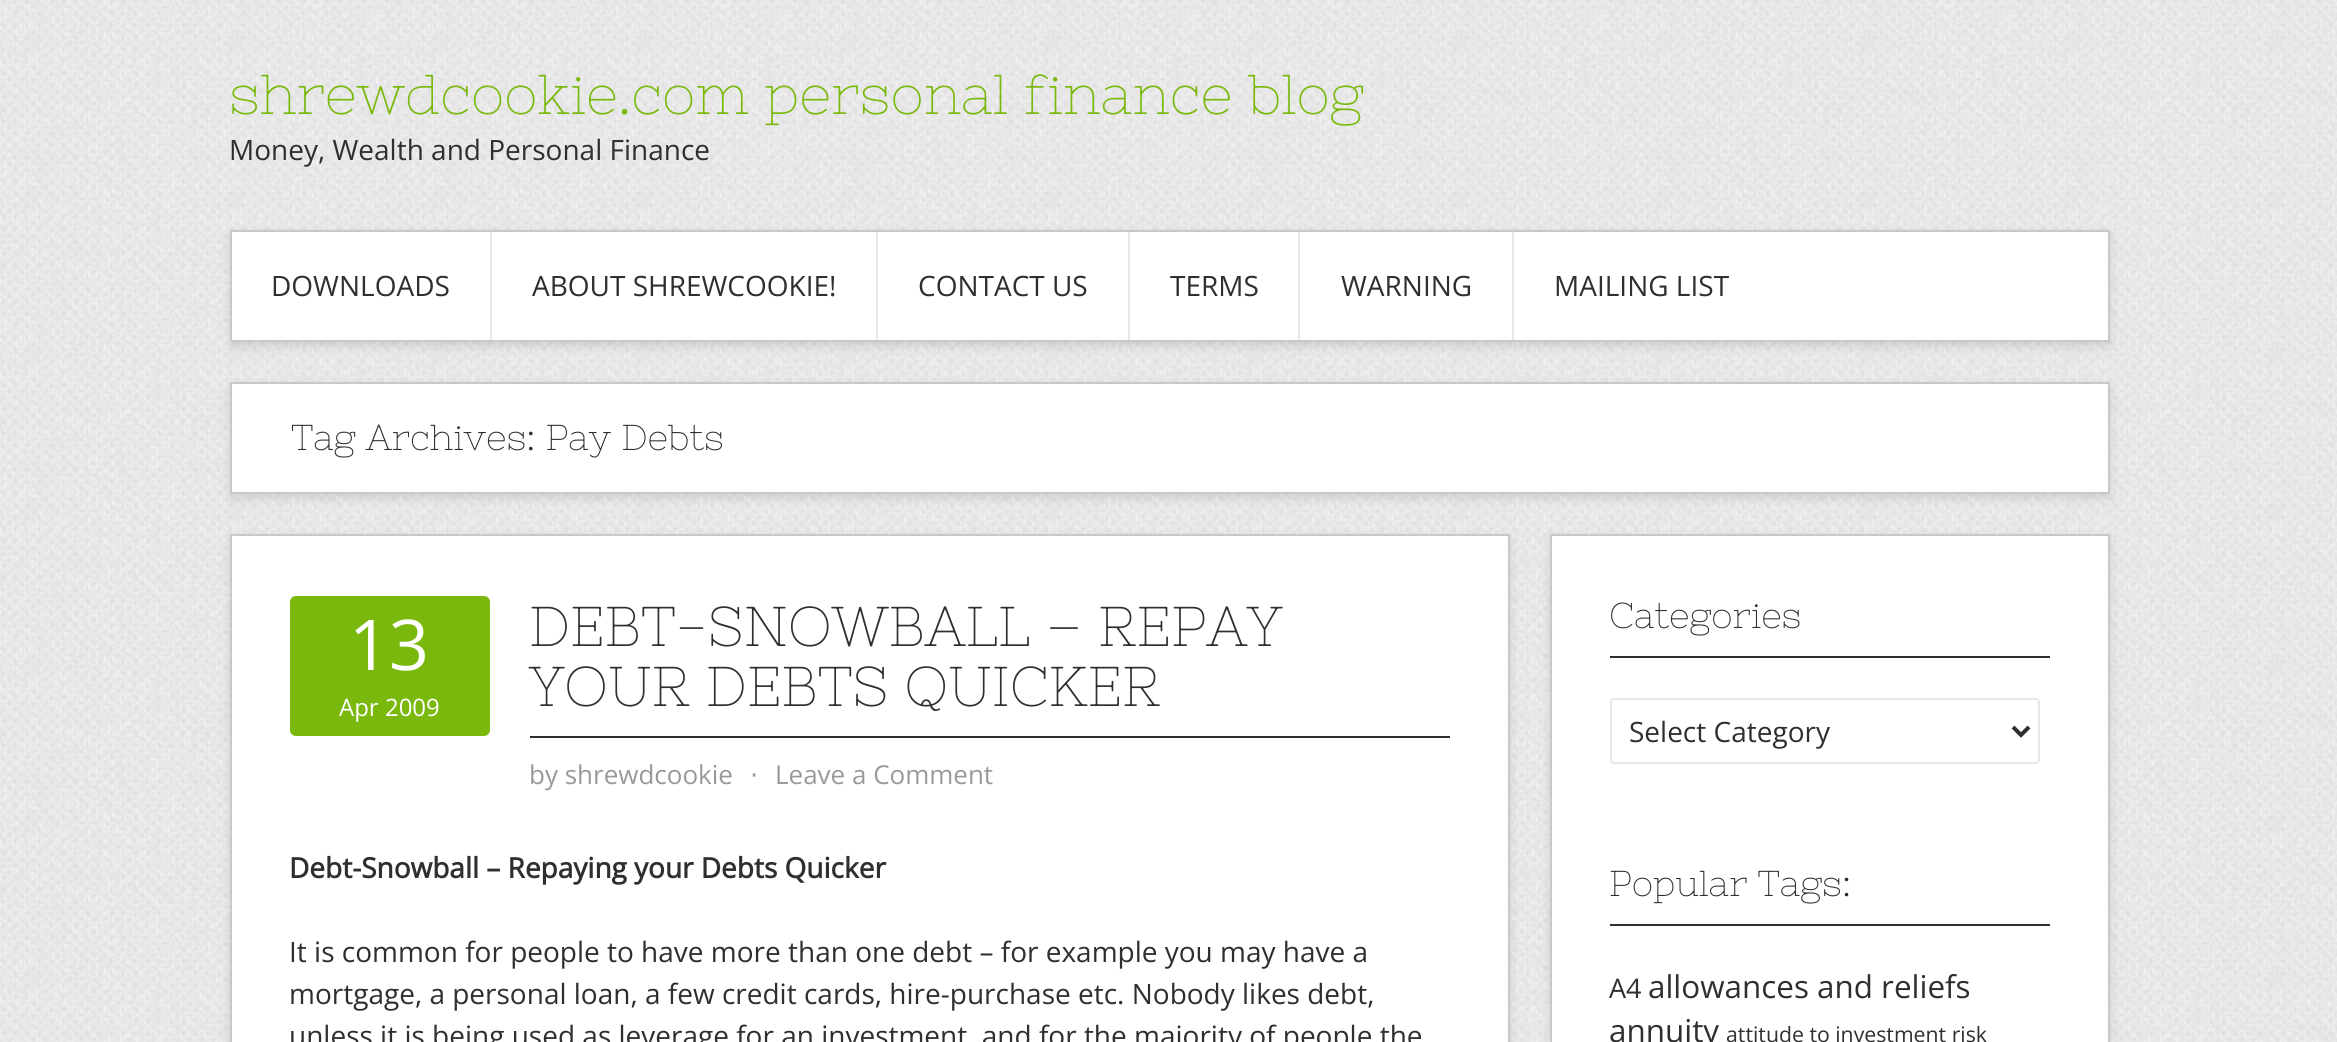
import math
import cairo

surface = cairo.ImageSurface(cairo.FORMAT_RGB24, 2337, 1042)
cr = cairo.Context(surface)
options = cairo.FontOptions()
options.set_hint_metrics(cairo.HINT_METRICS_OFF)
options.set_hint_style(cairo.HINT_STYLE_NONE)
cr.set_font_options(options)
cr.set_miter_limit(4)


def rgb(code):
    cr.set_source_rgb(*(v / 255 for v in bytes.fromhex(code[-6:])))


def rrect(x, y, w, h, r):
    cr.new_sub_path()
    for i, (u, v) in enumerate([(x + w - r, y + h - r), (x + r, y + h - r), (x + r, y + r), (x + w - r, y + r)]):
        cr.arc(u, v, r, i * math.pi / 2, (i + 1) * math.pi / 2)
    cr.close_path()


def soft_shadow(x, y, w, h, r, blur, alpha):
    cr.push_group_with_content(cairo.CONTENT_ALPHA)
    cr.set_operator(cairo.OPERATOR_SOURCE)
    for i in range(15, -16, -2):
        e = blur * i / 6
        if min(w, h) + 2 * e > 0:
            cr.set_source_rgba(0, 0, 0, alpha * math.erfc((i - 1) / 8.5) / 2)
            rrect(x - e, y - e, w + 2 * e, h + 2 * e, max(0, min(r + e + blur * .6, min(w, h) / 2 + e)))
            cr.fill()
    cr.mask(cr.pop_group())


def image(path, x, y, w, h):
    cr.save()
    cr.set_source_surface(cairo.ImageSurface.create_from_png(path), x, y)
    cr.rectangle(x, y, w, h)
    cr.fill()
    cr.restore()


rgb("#ffffff")
cr.paint()
image("img/1.png", 0, 0, 2337, 1042)
rgb("#323232")
soft_shadow(230, 234, 1880, 112, 0, 5, 0.15)
rgb("#ffffff")
cr.rectangle(231, 231, 1878, 110)
cr.fill_preserve()
rgb("#c8c8c8")
cr.stroke()
for x, y, w, h, color in [
    (490, 232, 2, 108, "#e7e7e7"),
    (876, 232, 2, 108, "#e7e7e7"),
    (1128, 232, 2, 108, "#e7e7e7"),
    (1298, 232, 2, 108, "#e7e7e7"),
    (1512, 232, 2, 108, "#e7e7e7"),
]:
    rgb(color)
    cr.rectangle(x, y, w, h)
    cr.fill()
rgb("#323232")
soft_shadow(230, 386, 1880, 112, 0, 5, 0.15)
rgb("#ffffff")
cr.rectangle(231, 383, 1878, 110)
cr.fill_preserve()
rgb("#c8c8c8")
cr.stroke()
rgb("#323232")
soft_shadow(230, 538, 1280, 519, 0, 5, 0.15)
rgb("#ffffff")
cr.rectangle(231, 535, 1278, 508)
cr.fill_preserve()
rgb("#c8c8c8")
cr.stroke()
rgb("#7ab80e")
rrect(290, 596, 200, 140, 6)
cr.fill()
rgb("#2f2f2f")
cr.rectangle(530, 736, 920, 2)
cr.fill()
rgb("#323232")
soft_shadow(1550, 538, 560, 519, 0, 5, 0.15)
rgb("#ffffff")
cr.rectangle(1551, 535, 558, 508)
cr.fill_preserve()
rgb("#c8c8c8")
cr.stroke()
rgb("#2f2f2f")
cr.rectangle(1610, 656, 440, 2)
cr.fill()
rrect(1611, 699, 428, 64, 3)
rgb("#e7e7e7")
cr.stroke()
cr.new_path()
cr.move_to(2013, 727)
cr.line_to(2021, 735)
cr.line_to(2029, 727)
rgb("#2f2f2f")
cr.set_line_width(4)
cr.stroke()
cr.rectangle(1610, 924, 440, 2)
cr.fill()
cr.select_font_face("Nixie One")
cr.set_font_size(56)
rgb("#7ab80e")
cr.move_to(229, 114)
cr.show_text("shrewdcookie.com personal finance blog")
cr.select_font_face("Open Sans")
cr.set_font_size(28)
rgb("#2f2f2f")
for x, y, s in [
    (229, 160, "Money, Wealth and Personal Finance"),
    (271, 296, "DOWNLOADS"),
    (532, 296, "ABOUT SHREWCOOKIE!"),
    (918, 296, "CONTACT US"),
    (1170, 296, "TERMS"),
    (1341, 296, "WARNING"),
    (1554, 296, "MAILING LIST"),
]:
    cr.move_to(x, y)
    cr.show_text(s)
cr.select_font_face("Nixie One")
cr.set_font_size(36)
cr.move_to(291, 450)
cr.show_text("Tag Archives: Pay Debts")
cr.select_font_face("Open Sans")
cr.set_font_size(70)
rgb("#ffffff")
cr.move_to(349, 670)
cr.show_text("13")
cr.set_font_size(24)
cr.move_to(339, 716)
cr.show_text("Apr 2009")
cr.select_font_face("Nixie One")
cr.set_font_size(56)
rgb("#2f2f2f")
cr.move_to(529, 646)
cr.show_text("DEBT-SNOWBALL – REPAY")
cr.move_to(529, 706)
cr.show_text("YOUR DEBTS QUICKER")
cr.select_font_face("Open Sans")
cr.set_font_size(26)
rgb("#999999")
cr.move_to(529, 784)
cr.show_text("by shrewdcookie")
cr.select_font_face("DejaVu Sans")
cr.move_to(750, 784)
cr.show_text("⋅")
cr.select_font_face("Open Sans")
cr.move_to(775, 784)
cr.show_text("Leave a Comment")
cr.select_font_face("Open Sans", cairo.FONT_SLANT_NORMAL, cairo.FONT_WEIGHT_BOLD)
cr.set_font_size(28)
rgb("#2f2f2f")
cr.move_to(289, 878)
cr.show_text("Debt-Snowball – Repaying your Debts Quicker")
cr.select_font_face("Open Sans")
for x, y, s in [
    (289, 962, "It is common for people to have more than one debt – for example you may have a"),
    (289, 1004, "mortgage, a personal loan, a few credit cards, hire-purchase etc. Nobody likes debt,"),
    (289, 1046, "unless it is being used as leverage for an investment, and for the majority of people the"),
]:
    cr.move_to(x, y)
    cr.show_text(s)
cr.select_font_face("Nixie One")
cr.set_font_size(36)
cr.move_to(1609, 628)
cr.show_text("Categories")
cr.select_font_face("Open Sans")
cr.set_font_size(28)
cr.move_to(1629, 742)
cr.show_text("Select Category")
cr.select_font_face("Nixie One")
cr.set_font_size(36)
cr.move_to(1609, 896)
cr.show_text("Popular Tags:")
cr.select_font_face("Open Sans")
cr.set_font_size(27)
cr.move_to(1609, 998)
cr.show_text("A4")
cr.set_font_size(31.4)
cr.move_to(1648, 998)
cr.show_text("allowances and reliefs")
cr.move_to(1609, 1042)
cr.show_text("annuity")
cr.set_font_size(21.25)
cr.move_to(1726, 1042)
cr.show_text("attitude to investment risk")
surface.write_to_png("page.png")
